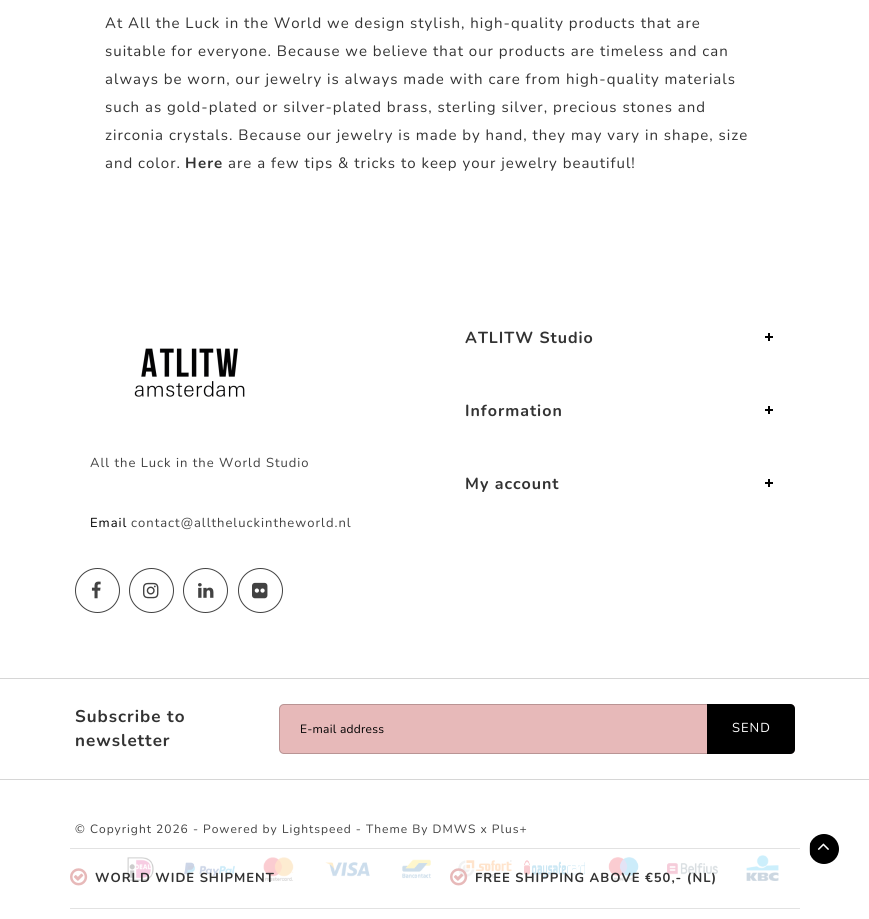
import math
import cairo

surface = cairo.ImageSurface(cairo.FORMAT_RGB24, 869, 919)
cr = cairo.Context(surface)
options = cairo.FontOptions()
options.set_hint_metrics(cairo.HINT_METRICS_OFF)
options.set_hint_style(cairo.HINT_STYLE_NONE)
cr.set_font_options(options)
cr.set_miter_limit(4)


def rgb(code):
    cr.set_source_rgb(*(v / 255 for v in bytes.fromhex(code[-6:])))


def tracked(x, y, s, letter, word):
    cr.move_to(x, y)
    for ch in s:
        cr.show_text(ch)
        cr.rel_move_to(letter + word * (ch == ' '), 0)


def rrect(x, y, w, h, r):
    cr.new_sub_path()
    for i, (u, v) in enumerate([(x + w - r, y + h - r), (x + r, y + h - r), (x + r, y + r), (x + w - r, y + r)]):
        cr.arc(u, v, r, i * math.pi / 2, (i + 1) * math.pi / 2)
    cr.close_path()


def image(path, x, y, w, h):
    cr.save()
    cr.set_source_surface(cairo.ImageSurface.create_from_png(path), x, y)
    cr.rectangle(x, y, w, h)
    cr.fill()
    cr.restore()


rgb("#ffffff")
cr.paint()
image("img/8.png", 127, 857, 27, 24)
image("img/9.png", 184, 862, 51, 14)
image("img/10.png", 263, 857, 31, 24)
image("img/11.png", 325, 862, 45, 15)
image("img/12.png", 402, 859, 29, 20)
image("img/13.png", 458, 860, 54, 19)
image("img/14.png", 524, 860, 61, 19)
image("img/15.png", 608, 857, 31, 24)
image("img/16.png", 667, 863, 51, 12)
image("img/17.png", 746, 855, 33, 26)
rgb("#000000")
cr.arc(824, 849, 15, 0, 2 * math.pi)
cr.fill()
cr.set_source_rgba(1, 1, 1, 0.8)
cr.rectangle(127, 844, 683, 37)
cr.fill()
rgb("#e2e2e2")
cr.rectangle(70, 848, 730, 1)
cr.rectangle(70, 908, 730, 1)
cr.fill()
image("img/1.png", 70, 868, 18, 18)
image("img/2.png", 450, 868, 18, 18)
image("img/3.png", 134, 348, 111, 49)
cr.arc(97.5, 590.5, 22, 0, 2 * math.pi)
rgb("#424242")
cr.set_line_width(1)
cr.stroke()
image("img/4.png", 91, 581, 10, 18)
cr.arc(151.5, 590.5, 22, 0, 2 * math.pi)
cr.stroke()
image("img/5.png", 143, 582, 16, 17)
cr.arc(205.5, 590.5, 22, 0, 2 * math.pi)
cr.stroke()
image("img/6.png", 198, 583, 16, 15)
cr.arc(260.5, 590.5, 22, 0, 2 * math.pi)
cr.stroke()
image("img/7.png", 252, 582, 16, 17)
for x, y, w, h, color in [
    (765, 336, 8, 2, "#000000"),
    (768, 333, 2, 8, "#000000"),
    (765, 409, 8, 2, "#000000"),
    (768, 406, 2, 8, "#000000"),
    (765, 482, 8, 2, "#000000"),
    (768, 479, 2, 8, "#000000"),
    (0, 678, 869, 1, "#d6d6d6"),
]:
    rgb(color)
    cr.rectangle(x, y, w, h)
    cr.fill()
rgb("#e7b9b9")
rrect(279, 704, 516, 50, 5)
cr.fill()
rrect(279.5, 704.5, 515, 49, 4.5)
cr.set_source_rgba(0, 0, 0, 0.2)
cr.stroke()
rgb("#000000")
cr.new_path()
cr.move_to(707, 704)
cr.line_to(790, 704)
cr.curve_to(793, 704, 795, 706, 795, 709)
cr.line_to(795, 749)
cr.curve_to(795, 752, 793, 754, 790, 754)
cr.line_to(707, 754)
cr.close_path()
cr.fill()
rgb("#d6d6d6")
cr.rectangle(0, 779, 869, 1)
cr.fill()
image("img/18.png", 817, 843, 12, 7)
cr.select_font_face("Nunito")
cr.set_font_size(15)
rgb("#333333")
for x, y, s in [
    (105, 28, "At All the Luck in the World we design stylish, high-quality products that are"),
    (105, 56, "suitable for everyone. Because we believe that our products are timeless and can"),
    (105, 84, "always be worn, our jewelry is always made with care from high-quality materials"),
    (105, 112, "such as gold-plated or silver-plated brass, sterling silver, precious stones and"),
    (105, 140, "zirconia crystals. Because our jewelry is made by hand, they may vary in shape, size"),
    (105, 168, "and color."),
]:
    tracked(x, y, s, 1, 0)
cr.select_font_face("Nunito", cairo.FONT_SLANT_NORMAL, cairo.FONT_WEIGHT_BOLD)
tracked(185, 168, "H", 1, 0)
tracked(198, 168, "ere", 1, 0)
cr.select_font_face("Nunito")
tracked(228, 168, "are a few tips & tricks to keep your jewelry beautiful!", 1, 0)
cr.select_font_face("Nunito", cairo.FONT_SLANT_NORMAL, cairo.FONT_WEIGHT_BOLD)
cr.set_font_size(13)
tracked(95, 882, "WORLD WIDE SHIPMENT", 1, 0)
tracked(475, 882, "FREE SHIPPING ABOVE €50,- (NL)", 1, 0)
cr.select_font_face("Nunito")
rgb("#424242")
tracked(90, 467, "All the Luck in the World Studio", 1, 0)
rgb("#000000")
tracked(90, 527, "Email", 1, 0)
rgb("#424242")
tracked(131, 527, "contact@alltheluckintheworld.nl", 1, 0)
cr.select_font_face("Nunito", cairo.FONT_SLANT_NORMAL, cairo.FONT_WEIGHT_BOLD)
cr.set_font_size(16)
rgb("#333333")
for x, y, s in [
    (465, 343, "ATLITW Studio"),
    (465, 416, "Information"),
    (465, 489, "My account"),
]:
    tracked(x, y, s, 1, 0)
cr.set_font_size(17)
tracked(75, 722, "Subscribe to", 1, 0)
tracked(75, 746, "newsletter", 1, 0)
cr.select_font_face("Nunito")
cr.set_font_size(12)
rgb("#000000")
tracked(300, 733, "E-mail address", 0.25, 0)
cr.set_font_size(13)
rgb("#ffffff")
tracked(732, 732, "SEND", 1, 0)
cr.set_font_size(12)
rgb("#424242")
tracked(75, 833, "© Copyright 2026 - Powered by Lightspeed - Theme By DMWS x Plus+", 1, 0)
surface.write_to_png("page.png")
